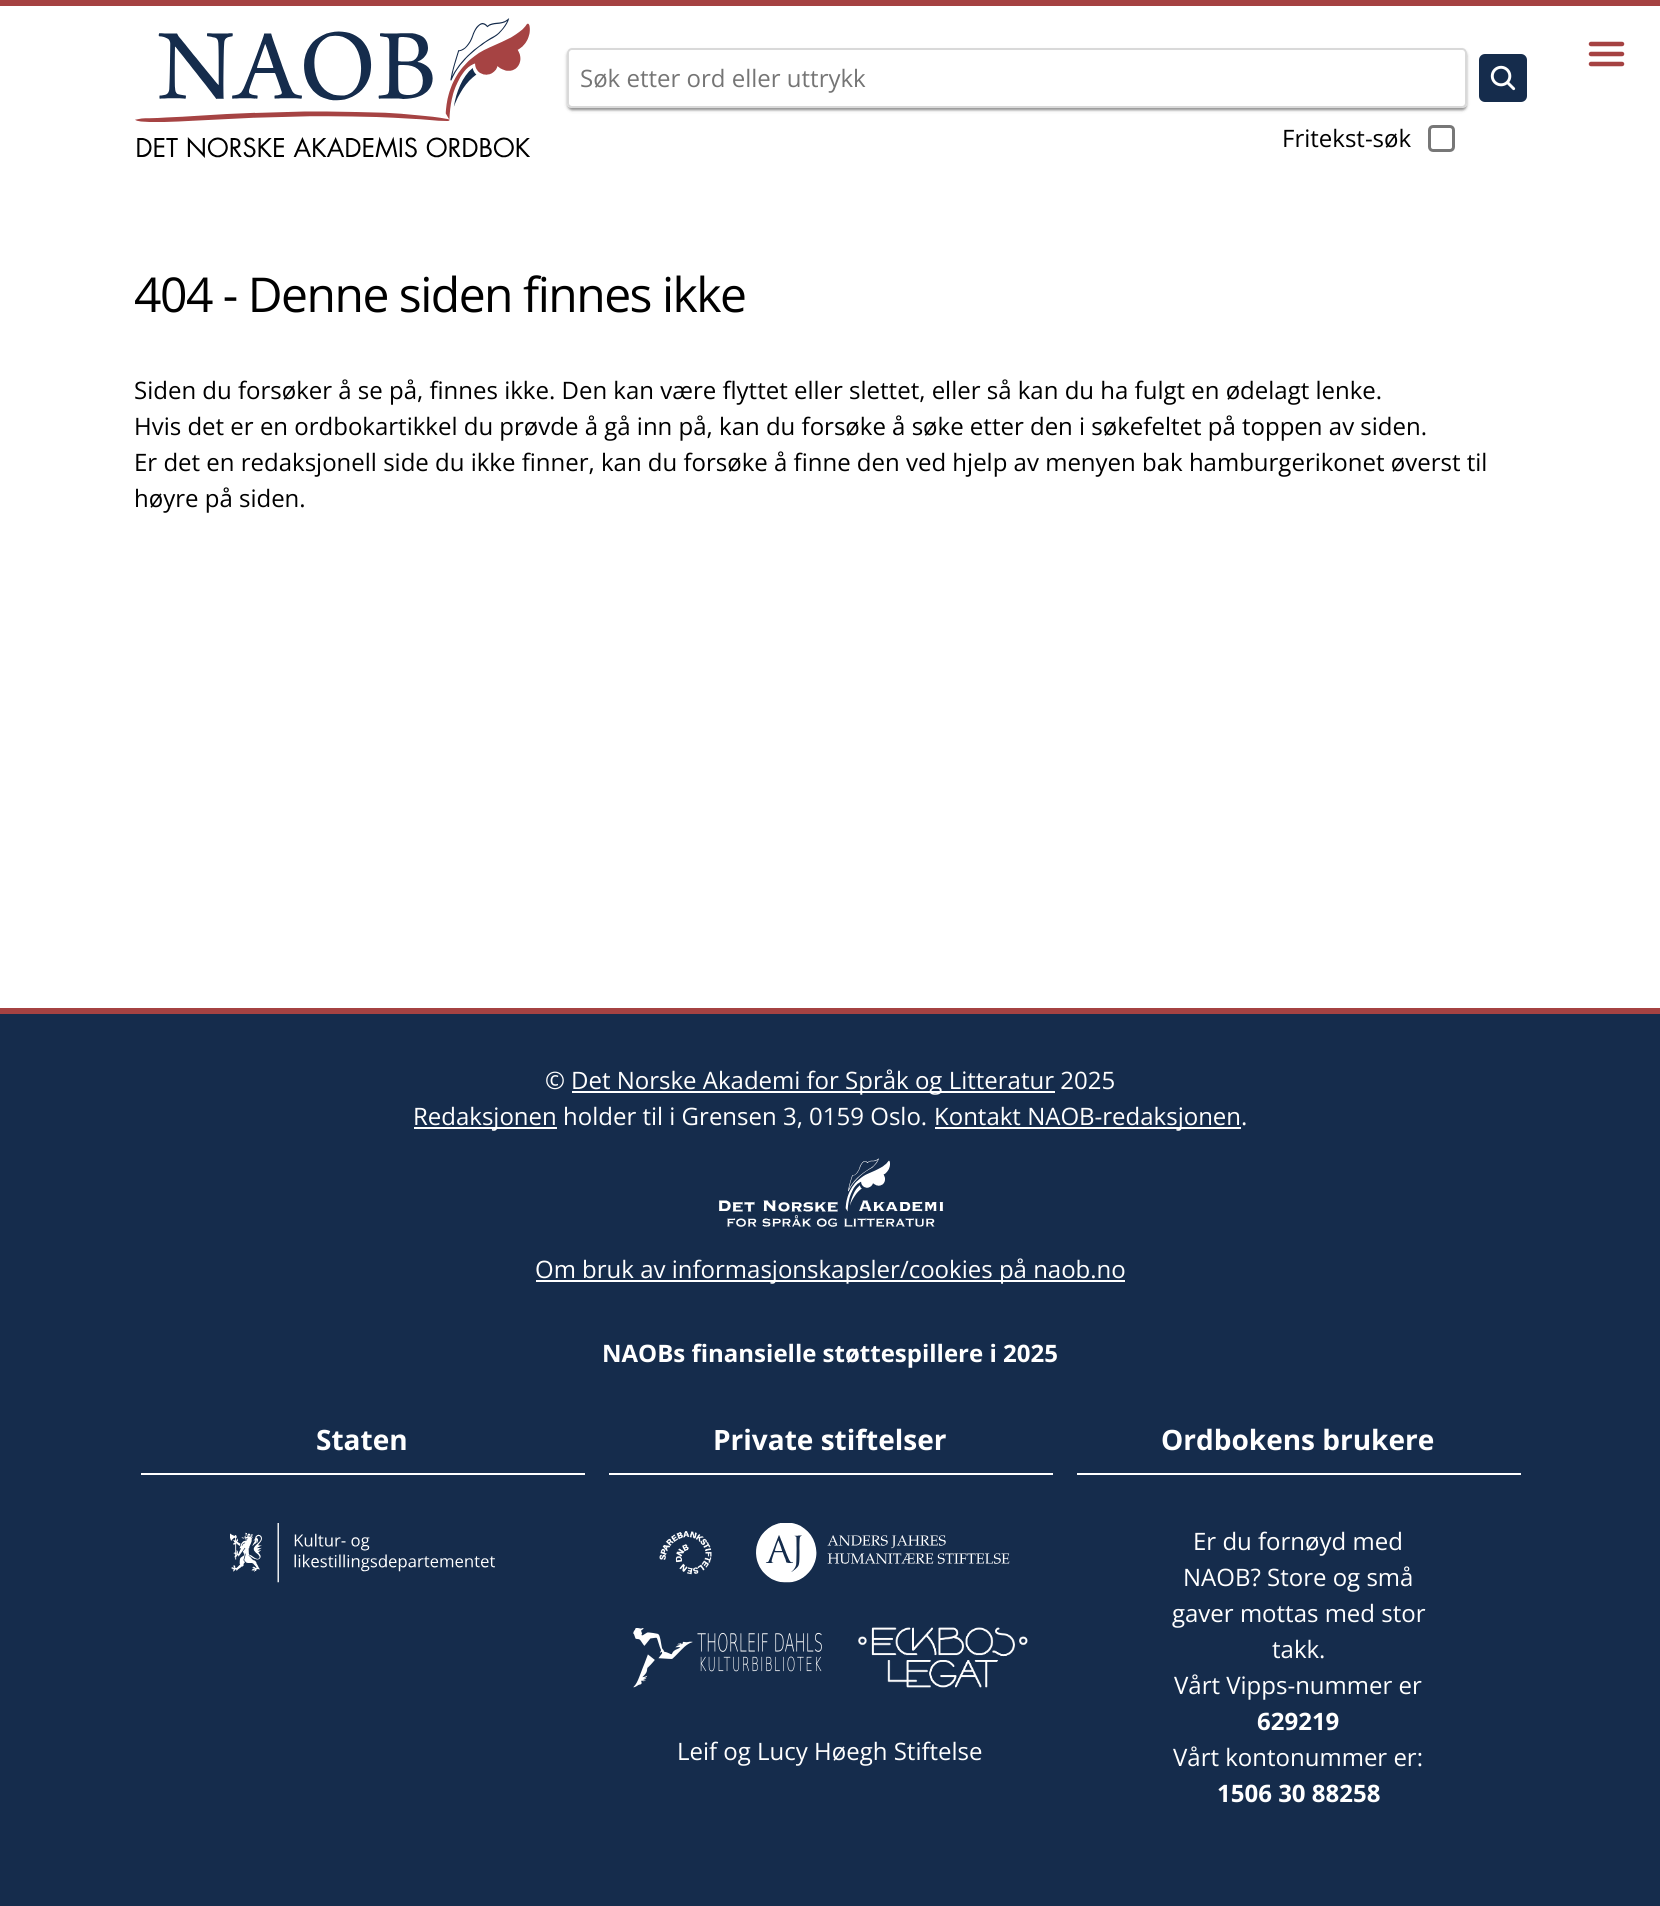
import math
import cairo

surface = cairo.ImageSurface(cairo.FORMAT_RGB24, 1660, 1906)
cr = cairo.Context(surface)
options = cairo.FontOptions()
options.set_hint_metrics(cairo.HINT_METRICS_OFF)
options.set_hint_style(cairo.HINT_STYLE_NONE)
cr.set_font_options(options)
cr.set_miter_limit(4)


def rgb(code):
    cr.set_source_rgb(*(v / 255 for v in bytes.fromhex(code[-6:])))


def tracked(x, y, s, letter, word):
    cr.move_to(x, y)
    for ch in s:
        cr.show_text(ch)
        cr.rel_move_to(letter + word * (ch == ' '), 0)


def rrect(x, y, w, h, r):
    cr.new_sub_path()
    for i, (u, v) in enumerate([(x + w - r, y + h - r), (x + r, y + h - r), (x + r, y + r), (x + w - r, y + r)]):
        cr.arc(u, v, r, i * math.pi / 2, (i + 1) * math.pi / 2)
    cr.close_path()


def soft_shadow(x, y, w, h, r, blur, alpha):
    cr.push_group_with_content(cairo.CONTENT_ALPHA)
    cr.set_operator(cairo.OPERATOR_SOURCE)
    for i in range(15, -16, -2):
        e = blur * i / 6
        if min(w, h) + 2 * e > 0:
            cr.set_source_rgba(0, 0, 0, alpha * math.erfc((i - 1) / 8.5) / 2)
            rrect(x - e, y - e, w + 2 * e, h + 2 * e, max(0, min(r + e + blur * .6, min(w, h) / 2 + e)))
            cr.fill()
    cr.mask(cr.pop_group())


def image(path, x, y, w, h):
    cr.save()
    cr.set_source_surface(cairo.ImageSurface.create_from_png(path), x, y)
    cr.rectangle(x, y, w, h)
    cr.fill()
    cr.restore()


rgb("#ffffff")
cr.paint()
rgb("#a54242")
cr.rectangle(0, 0, 1660, 6)
cr.fill()
cr.new_path()
cr.move_to(1591, 44)
cr.line_to(1622, 44)
cr.move_to(1591, 54)
cr.line_to(1622, 54)
cr.move_to(1591, 64)
cr.line_to(1622, 64)
cr.set_line_width(4.5)
cr.set_line_cap(cairo.LINE_CAP_ROUND)
cr.stroke()
image("img/1.png", 135, 18, 395, 140)
cr.save()
cr.set_fill_rule(cairo.FILL_RULE_EVEN_ODD)
cr.new_path()
cr.move_to(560, 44)
cr.line_to(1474, 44)
cr.line_to(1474, 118)
cr.line_to(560, 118)
cr.close_path()
cr.move_to(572, 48)
cr.line_to(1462, 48)
cr.curve_to(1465, 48, 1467, 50, 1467, 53)
cr.line_to(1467, 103)
cr.curve_to(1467, 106, 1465, 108, 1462, 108)
cr.line_to(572, 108)
cr.curve_to(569, 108, 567, 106, 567, 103)
cr.line_to(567, 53)
cr.curve_to(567, 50, 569, 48, 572, 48)
cr.close_path()
cr.clip()
rgb("#000000")
soft_shadow(567, 51, 900, 60, 5, 2, 0.06)
cr.restore()
cr.save()
cr.set_fill_rule(cairo.FILL_RULE_EVEN_ODD)
cr.new_path()
cr.move_to(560, 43)
cr.line_to(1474, 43)
cr.line_to(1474, 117)
cr.line_to(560, 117)
cr.close_path()
cr.move_to(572, 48)
cr.line_to(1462, 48)
cr.curve_to(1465, 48, 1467, 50, 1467, 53)
cr.line_to(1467, 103)
cr.curve_to(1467, 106, 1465, 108, 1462, 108)
cr.line_to(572, 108)
cr.curve_to(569, 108, 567, 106, 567, 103)
cr.line_to(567, 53)
cr.curve_to(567, 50, 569, 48, 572, 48)
cr.close_path()
cr.clip()
rgb("#000000")
soft_shadow(567, 50, 900, 60, 5, 2, 0.12)
cr.restore()
cr.save()
cr.set_fill_rule(cairo.FILL_RULE_EVEN_ODD)
cr.new_path()
cr.move_to(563, 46)
cr.line_to(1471, 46)
cr.line_to(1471, 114)
cr.line_to(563, 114)
cr.close_path()
cr.move_to(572, 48)
cr.line_to(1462, 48)
cr.curve_to(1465, 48, 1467, 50, 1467, 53)
cr.line_to(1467, 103)
cr.curve_to(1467, 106, 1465, 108, 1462, 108)
cr.line_to(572, 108)
cr.curve_to(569, 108, 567, 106, 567, 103)
cr.line_to(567, 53)
cr.curve_to(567, 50, 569, 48, 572, 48)
cr.close_path()
cr.clip()
rgb("#000000")
soft_shadow(567, 50, 900, 60, 5, 1, 0.14)
cr.restore()
cr.save()
cr.set_fill_rule(cairo.FILL_RULE_EVEN_ODD)
cr.new_path()
cr.move_to(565, 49)
cr.line_to(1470, 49)
cr.line_to(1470, 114)
cr.line_to(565, 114)
cr.close_path()
cr.move_to(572, 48)
cr.line_to(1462, 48)
cr.curve_to(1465, 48, 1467, 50, 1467, 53)
cr.line_to(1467, 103)
cr.curve_to(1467, 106, 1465, 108, 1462, 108)
cr.line_to(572, 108)
cr.curve_to(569, 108, 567, 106, 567, 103)
cr.line_to(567, 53)
cr.curve_to(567, 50, 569, 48, 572, 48)
cr.close_path()
cr.clip()
rgb("#000000")
soft_shadow(569, 53, 897, 57, 3, 1, 0.2)
cr.restore()
rrect(568, 49, 898, 58, 4)
cr.set_source_rgba(0, 0, 0, 0.15)
cr.set_line_width(2)
cr.set_line_cap(cairo.LINE_CAP_BUTT)
cr.stroke()
rgb("#152c4c")
rrect(1479, 54, 48, 48, 6)
cr.fill()
image("img/2.png", 1490, 65, 26, 26)
rrect(1429.5, 126.5, 24, 24, 3.5)
rgb("#777777")
cr.set_line_width(3)
cr.stroke()
for x, y, w, h, color in [
    (0, 1014, 1660, 892, "#152c4c"),
    (0, 1008, 1660, 6, "#a54242"),
    (572, 1091, 483, 2, "#ffffff"),
    (414, 1127, 143, 2, "#ffffff"),
    (935, 1127, 306, 2, "#ffffff"),
]:
    rgb(color)
    cr.rectangle(x, y, w, h)
    cr.fill()
image("img/3.png", 719, 1158, 225, 69)
cr.rectangle(536, 1280, 589, 2)
cr.fill()
cr.rectangle(141, 1473, 444, 2)
cr.fill()
image("img/4.png", 230, 1523, 265, 60)
cr.rectangle(609, 1473, 444, 2)
cr.fill()
image("img/5.png", 659, 1531, 53, 44)
image("img/6.png", 756, 1523, 254, 60)
image("img/7.png", 633, 1628, 189, 60)
image("img/8.png", 858, 1627, 170, 61)
cr.rectangle(1077, 1473, 444, 2)
cr.fill()
cr.select_font_face("Open Sans")
cr.set_font_size(24)
rgb("#757575")
cr.move_to(580, 87)
cr.show_text("Søk etter ord eller uttrykk")
rgb("#000000")
cr.move_to(1282, 147)
cr.show_text("Fritekst-søk")
cr.set_font_size(48)
tracked(134, 312, "404 - Denne siden finnes ikke", -1.5, 0)
cr.set_font_size(24)
for x, y, s in [
    (134, 399, "Siden du forsøker å se på, finnes ikke. Den kan være flyttet eller slettet, eller så kan du ha fulgt en ødelagt lenke."),
    (134, 435, "Hvis det er en ordbokartikkel du prøvde å gå inn på, kan du forsøke å søke etter den i søkefeltet på toppen av siden."),
    (134, 471, "Er det en redaksjonell side du ikke finner, kan du forsøke å finne den ved hjelp av menyen bak hamburgerikonet øverst til"),
    (134, 507, "høyre på siden."),
]:
    cr.move_to(x, y)
    cr.show_text(s)
rgb("#ffffff")
for x, y, s in [
    (545, 1089, "©"),
    (571, 1089, "Det Norske Akademi for Språk og Litteratur 2025"),
    (413, 1125, "Redaksjonen holder til i Grensen 3, 0159 Oslo."),
    (934, 1125, "Kontakt NAOB-redaksjonen."),
    (535, 1278, "Om bruk av informasjonskapsler/cookies på naob.no"),
]:
    cr.move_to(x, y)
    cr.show_text(s)
cr.select_font_face("Open Sans", cairo.FONT_SLANT_NORMAL, cairo.FONT_WEIGHT_BOLD)
cr.move_to(602, 1362)
cr.show_text("NAOBs finansielle støttespillere i 2025")
cr.set_font_size(28)
cr.move_to(316, 1450)
cr.show_text("Staten")
cr.move_to(713, 1450)
cr.show_text("Private stiftelser")
cr.select_font_face("Open Sans")
cr.set_font_size(24)
cr.move_to(677, 1760)
cr.show_text("Leif og Lucy Høegh Stiftelse")
cr.select_font_face("Open Sans", cairo.FONT_SLANT_NORMAL, cairo.FONT_WEIGHT_BOLD)
cr.set_font_size(28)
cr.move_to(1161, 1450)
cr.show_text("Ordbokens brukere")
cr.select_font_face("Open Sans")
cr.set_font_size(24)
for x, y, s in [
    (1193, 1550, "Er du fornøyd med"),
    (1183, 1586, "NAOB? Store og små"),
    (1172, 1622, "gaver mottas med stor"),
    (1272, 1658, "takk."),
    (1174, 1694, "Vårt Vipps-nummer er"),
]:
    cr.move_to(x, y)
    cr.show_text(s)
cr.select_font_face("Open Sans", cairo.FONT_SLANT_NORMAL, cairo.FONT_WEIGHT_BOLD)
cr.move_to(1257, 1730)
cr.show_text("629219")
cr.select_font_face("Open Sans")
cr.move_to(1173, 1766)
cr.show_text("Vårt kontonummer er:")
cr.select_font_face("Open Sans", cairo.FONT_SLANT_NORMAL, cairo.FONT_WEIGHT_BOLD)
cr.move_to(1217, 1802)
cr.show_text("1506 30 88258")
surface.write_to_png("page.png")
